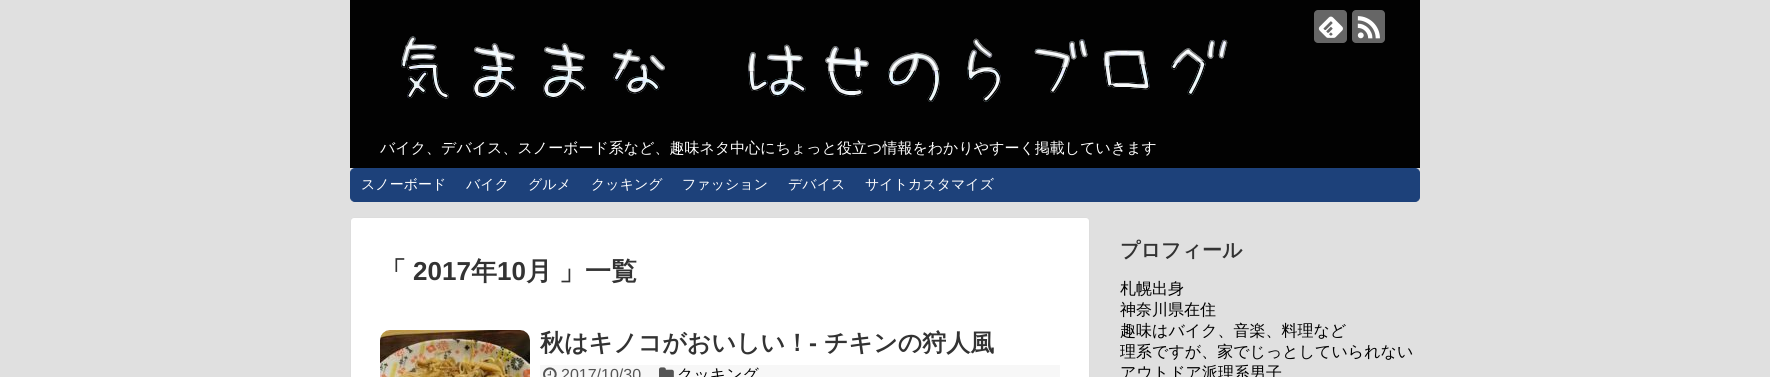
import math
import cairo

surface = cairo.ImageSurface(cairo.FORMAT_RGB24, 1770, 377)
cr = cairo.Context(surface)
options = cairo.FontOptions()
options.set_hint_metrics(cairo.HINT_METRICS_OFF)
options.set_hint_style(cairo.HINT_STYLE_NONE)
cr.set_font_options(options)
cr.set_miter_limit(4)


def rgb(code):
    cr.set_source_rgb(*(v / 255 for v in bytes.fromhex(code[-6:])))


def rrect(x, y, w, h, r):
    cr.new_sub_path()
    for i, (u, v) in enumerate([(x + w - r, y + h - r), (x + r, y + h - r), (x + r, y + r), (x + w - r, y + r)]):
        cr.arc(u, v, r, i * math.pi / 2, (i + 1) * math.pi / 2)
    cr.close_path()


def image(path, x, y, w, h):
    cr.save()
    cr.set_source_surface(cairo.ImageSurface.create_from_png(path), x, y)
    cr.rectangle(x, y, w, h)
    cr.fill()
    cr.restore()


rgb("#e0e0e0")
cr.paint()
rgb("#020202")
cr.rectangle(350, 0, 1070, 168)
cr.fill()
rgb("#666666")
rrect(1314, 10, 33, 33, 4)
cr.fill()
image("img/1.png", 1318, 16, 25, 22)
rrect(1352, 10, 33, 33, 4)
cr.fill()
image("img/2.png", 1357, 16, 23, 23)
image("img/3.png", 401, 36, 827, 66)
rgb("#1d417a")
rrect(350.5, 168.5, 1069, 33, 4.5)
cr.fill_preserve()
cr.set_line_width(1)
cr.stroke()
rgb("#ffffff")
rrect(350.5, 217.5, 739, 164, 3.5)
cr.fill_preserve()
rgb("#dddddd")
cr.stroke()
image("img/4.png", 380, 330, 150, 47)
rgb("#f7f7f7")
cr.rectangle(540, 365, 520, 12)
cr.fill()
image("img/5.png", 543, 367, 14, 10)
image("img/6.png", 659, 367, 15, 10)
cr.select_font_face("WenQuanYi Zen Hei Medium")
cr.set_font_size(15)
rgb("#ffffff")
cr.move_to(380, 153)
cr.show_text("バイク、デバイス、スノーボード系など、趣味ネタ中心にちょっと役立つ情報をわかりやすーく掲載していきます")
cr.set_font_size(14)
for x, y, s in [
    (361, 189, "スノーボード"),
    (466, 189, "バイク"),
    (528, 189, "グルメ"),
    (591, 189, "クッキング"),
    (682, 189, "ファッション"),
    (788, 189, "デバイス"),
    (865, 189, "サイトカスタマイズ"),
]:
    cr.move_to(x, y)
    cr.show_text(s)
cr.select_font_face("WenQuanYi Zen Hei", cairo.FONT_SLANT_NORMAL, cairo.FONT_WEIGHT_BOLD)
cr.set_font_size(26)
rgb("#333333")
cr.move_to(380, 280)
cr.show_text("「")
cr.select_font_face("Liberation Sans", cairo.FONT_SLANT_NORMAL, cairo.FONT_WEIGHT_BOLD)
cr.move_to(413, 280)
cr.show_text("2017")
cr.select_font_face("WenQuanYi Zen Hei", cairo.FONT_SLANT_NORMAL, cairo.FONT_WEIGHT_BOLD)
cr.move_to(471, 280)
cr.show_text("年")
cr.select_font_face("Liberation Sans", cairo.FONT_SLANT_NORMAL, cairo.FONT_WEIGHT_BOLD)
cr.move_to(497, 280)
cr.show_text("10")
cr.select_font_face("WenQuanYi Zen Hei", cairo.FONT_SLANT_NORMAL, cairo.FONT_WEIGHT_BOLD)
cr.move_to(526, 280)
cr.show_text("月")
cr.move_to(559, 280)
cr.show_text("」一覧")
cr.set_font_size(24)
cr.move_to(540, 351)
cr.show_text("秋はキノコがおいしい！")
cr.select_font_face("Liberation Sans", cairo.FONT_SLANT_NORMAL, cairo.FONT_WEIGHT_BOLD)
cr.move_to(809, 351)
cr.show_text("-")
cr.select_font_face("WenQuanYi Zen Hei", cairo.FONT_SLANT_NORMAL, cairo.FONT_WEIGHT_BOLD)
cr.move_to(824, 351)
cr.show_text("チキンの狩人風")
cr.select_font_face("Liberation Sans")
cr.set_font_size(16)
rgb("#555555")
cr.move_to(561, 380)
cr.show_text("2017/10/30")
cr.select_font_face("WenQuanYi Zen Hei Medium")
rgb("#000000")
cr.move_to(677, 380)
cr.show_text("クッキング")
cr.select_font_face("WenQuanYi Zen Hei", cairo.FONT_SLANT_NORMAL, cairo.FONT_WEIGHT_BOLD)
cr.set_font_size(20)
rgb("#333333")
cr.move_to(1120, 257)
cr.show_text("プロフィール")
cr.select_font_face("WenQuanYi Zen Hei Medium")
cr.set_font_size(16)
rgb("#000000")
for x, y, s in [
    (1120, 294, "札幌出身"),
    (1120, 315, "神奈川県在住"),
    (1120, 336, "趣味はバイク、音楽、料理など"),
    (1120, 357, "理系ですが、家でじっとしていられない"),
    (1120, 378, "アウトドア派理系男子"),
]:
    cr.move_to(x, y)
    cr.show_text(s)
surface.write_to_png("page.png")
